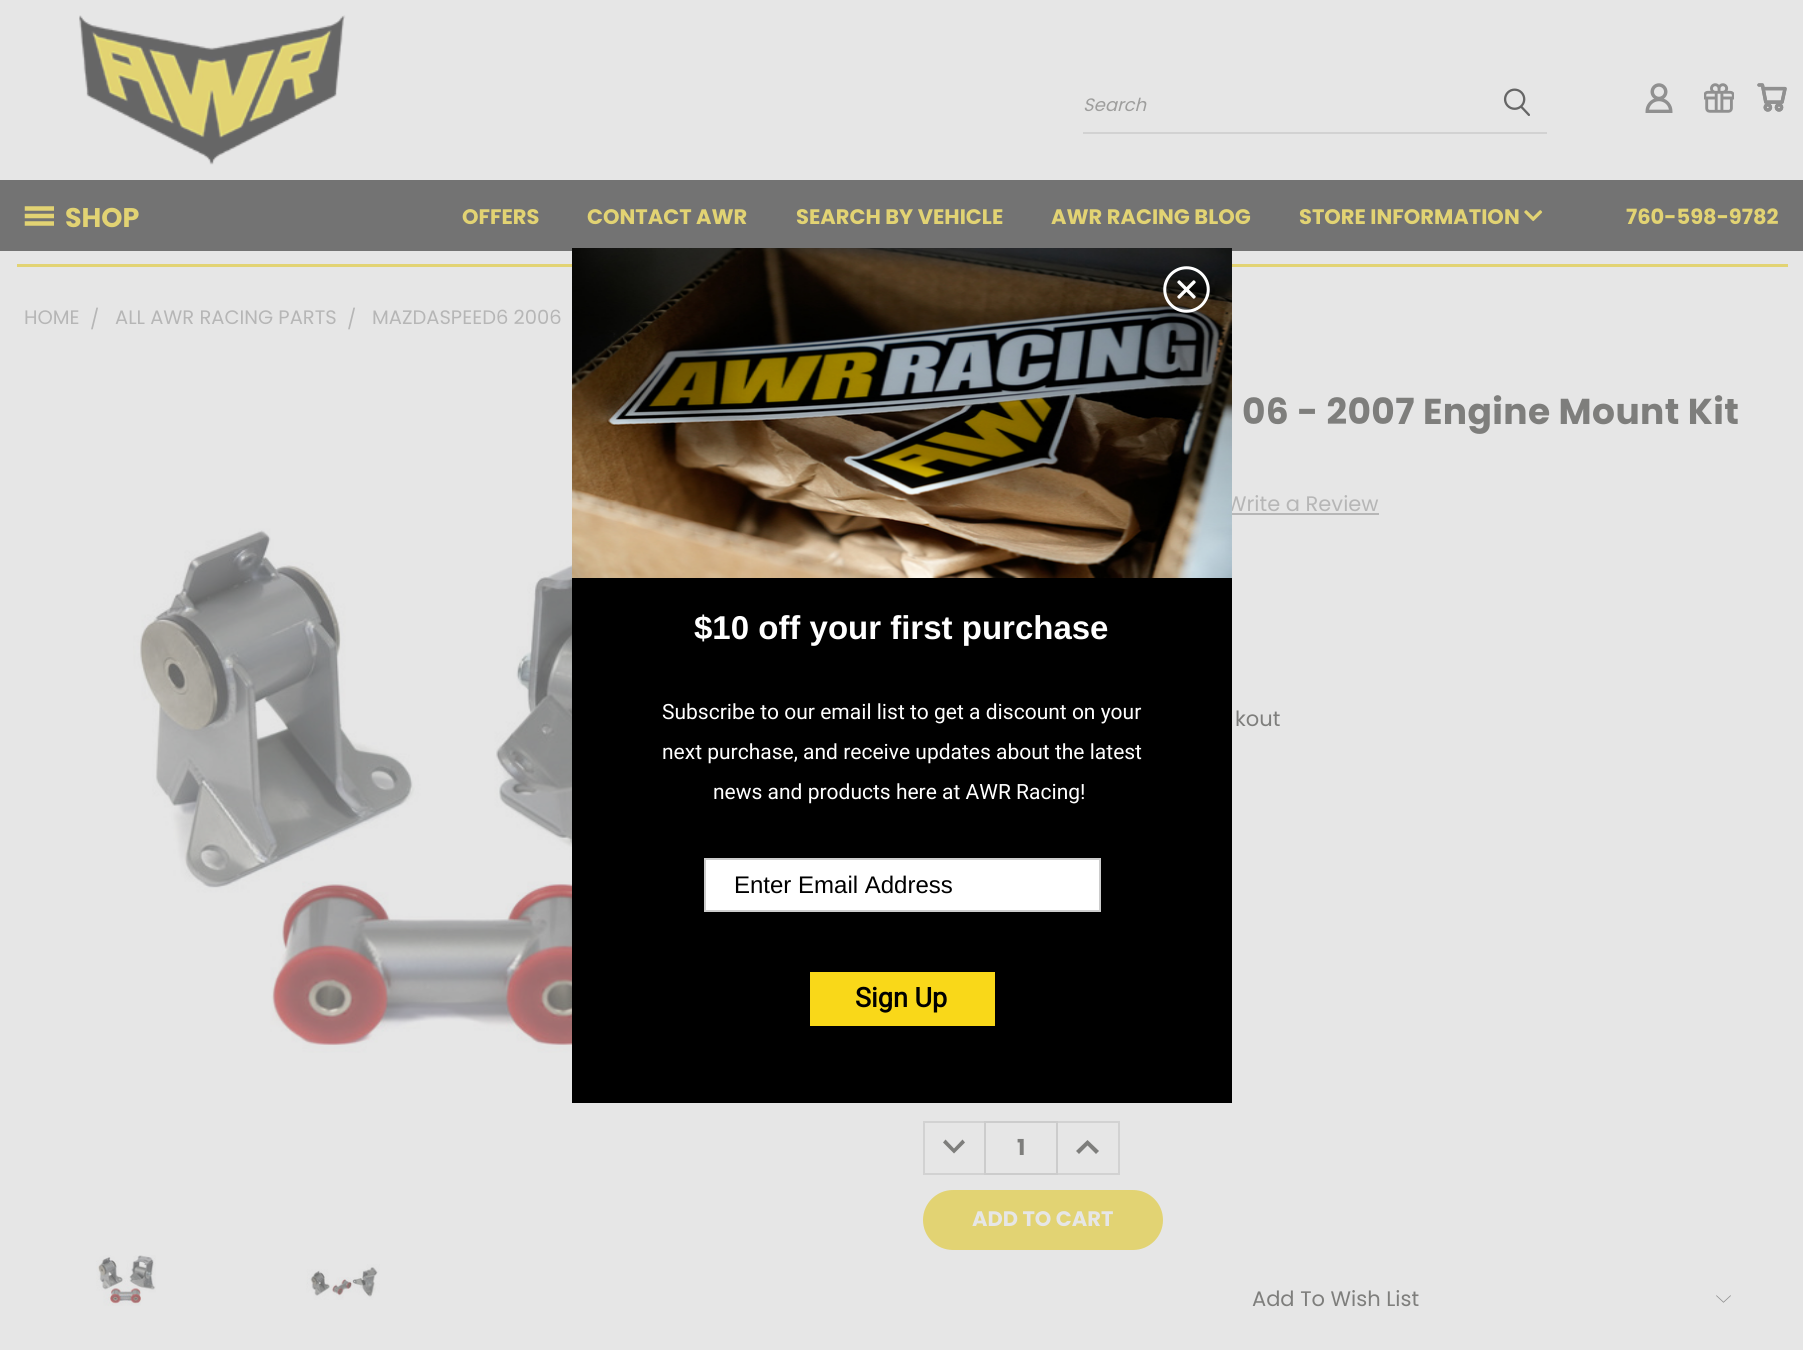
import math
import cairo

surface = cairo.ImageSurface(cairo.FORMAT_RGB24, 1803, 1350)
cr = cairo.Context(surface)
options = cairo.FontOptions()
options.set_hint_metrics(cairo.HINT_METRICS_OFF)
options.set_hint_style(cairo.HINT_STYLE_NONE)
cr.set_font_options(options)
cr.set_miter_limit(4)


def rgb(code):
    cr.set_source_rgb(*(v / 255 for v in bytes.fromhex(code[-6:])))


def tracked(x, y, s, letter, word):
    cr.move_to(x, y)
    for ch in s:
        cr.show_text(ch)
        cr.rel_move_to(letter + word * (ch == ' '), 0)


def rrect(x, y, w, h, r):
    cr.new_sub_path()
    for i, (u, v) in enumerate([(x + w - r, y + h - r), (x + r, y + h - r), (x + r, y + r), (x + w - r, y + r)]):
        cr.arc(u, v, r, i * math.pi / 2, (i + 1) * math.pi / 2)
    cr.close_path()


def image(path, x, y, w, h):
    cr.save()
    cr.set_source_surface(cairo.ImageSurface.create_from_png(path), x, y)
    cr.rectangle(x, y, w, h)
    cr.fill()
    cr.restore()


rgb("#e6e6e6")
cr.paint()
image("img/1.png", 79, 15, 267, 150)
rgb("#d2d2d2")
cr.rectangle(1083, 132, 464, 2)
cr.fill()
image("img/2.png", 1503, 88, 27, 28)
image("img/3.png", 1645, 83, 28, 30)
image("img/4.png", 1704, 83, 30, 30)
image("img/5.png", 1757, 83, 30, 29)
rgb("#737373")
cr.rectangle(0, 180, 1803, 71)
cr.fill()
image("img/6.png", 24, 206, 30, 20)
image("img/7.png", 1524, 210, 19, 12)
rgb("#e2d373")
cr.rectangle(17, 264, 1771, 3)
cr.fill()
rgb("#b6b6b6")
cr.rectangle(1226, 513, 153, 2)
cr.fill()
image("img/8.png", 133, 512, 439, 541)
image("img/9.png", 96, 1255, 60, 51)
image("img/10.png", 306, 1264, 74, 36)
for x, y, w, h, color in [
    (923, 1121, 61, 2, "#d2d2d2"),
    (923, 1173, 61, 2, "#d2d2d2"),
    (923, 1121, 2, 54, "#d2d2d2"),
]:
    rgb(color)
    cr.rectangle(x, y, w, h)
    cr.fill()
rgb("#7e7e7c")
cr.new_path()
cr.move_to(945.5, 1139.5)
cr.line_to(954, 1148.5)
cr.line_to(962.5, 1139.5)
cr.line_to(965, 1142.5)
cr.line_to(954, 1153.5)
cr.line_to(943, 1142.5)
cr.close_path()
cr.fill()
cr.rectangle(985, 1122, 72, 52)
rgb("#cccccc")
cr.stroke()
for x, y, w, h, color in [
    (1058, 1121, 61, 2, "#d2d2d2"),
    (1118, 1121, 2, 54, "#d2d2d2"),
    (1058, 1173, 61, 2, "#d2d2d2"),
]:
    rgb(color)
    cr.rectangle(x, y, w, h)
    cr.fill()
rgb("#7e7e7c")
cr.new_path()
cr.move_to(1079, 1154)
cr.line_to(1087.5, 1145.5)
cr.line_to(1096, 1154)
cr.line_to(1099, 1151)
cr.line_to(1087.5, 1140)
cr.line_to(1076, 1151)
cr.close_path()
cr.fill()
rgb("#e2d373")
rrect(924, 1191, 238, 58, 29)
cr.fill_preserve()
cr.stroke()
image("img/11.png", 1716, 1295, 15, 8)
rgb("#000000")
cr.rectangle(572, 578, 660, 525)
cr.fill()
rgb("#ffffff")
cr.rectangle(705, 859, 395, 52)
cr.fill_preserve()
rgb("#cccccc")
cr.stroke()
rgb("#f9d819")
cr.rectangle(810, 972, 185, 54)
cr.fill()
cr.select_font_face("Poppins", cairo.FONT_SLANT_ITALIC)
cr.set_font_size(18)
rgb("#9e9e9d")
cr.move_to(1083, 111)
cr.show_text("Search")
cr.select_font_face("Poppins", cairo.FONT_SLANT_NORMAL, cairo.FONT_WEIGHT_BOLD)
cr.set_font_size(27)
rgb("#e2d373")
cr.move_to(65, 227)
cr.show_text("SHOP")
cr.set_font_size(21)
for x, y, s in [
    (462, 224, "OFFERS"),
    (587, 224, "CONTACT AWR"),
    (796, 224, "SEARCH BY VEHICLE"),
    (1051, 224, "AWR RACING BLOG"),
    (1299, 224, "STORE INFORMATION"),
    (1626, 224, "760-598-9782"),
]:
    cr.move_to(x, y)
    cr.show_text(s)
cr.select_font_face("Poppins")
cr.set_font_size(19.5)
rgb("#b6b6b6")
for x, y, s in [
    (24, 324, "HOME"),
    (90, 326, "/"),
    (115, 324, "ALL AWR RACING PARTS"),
    (347, 326, "/"),
    (372, 324, "MAZDASPEED6 2006"),
]:
    cr.move_to(x, y)
    cr.show_text(s)
cr.select_font_face("Poppins", cairo.FONT_SLANT_NORMAL, cairo.FONT_WEIGHT_BOLD)
cr.set_font_size(36)
rgb("#7e7e7c")
tracked(1242, 424, "06 - 2007 Engine Mount Kit", 0.4, 0)
cr.select_font_face("Poppins")
cr.set_font_size(21)
rgb("#b6b6b6")
cr.move_to(1226, 511)
cr.show_text("Write a Review")
rgb("#7e7e7c")
cr.move_to(1235, 726)
cr.show_text("kout")
cr.select_font_face("Poppins", cairo.FONT_SLANT_NORMAL, cairo.FONT_WEIGHT_BOLD)
cr.set_font_size(22)
cr.move_to(1017, 1155)
cr.show_text("1")
cr.set_font_size(21)
rgb("#e6e6e6")
cr.move_to(972, 1226)
cr.show_text("ADD TO CART")
cr.select_font_face("Poppins")
rgb("#7e7e7c")
cr.move_to(1252, 1306)
cr.show_text("Add To Wish List")
image("img/13.png", 572, 248, 660, 330)
image("img/12.png", 1163, 266, 47, 47)
cr.select_font_face("Liberation Sans", cairo.FONT_SLANT_NORMAL, cairo.FONT_WEIGHT_BOLD)
cr.set_font_size(33)
rgb("#ffffff")
cr.move_to(694, 639)
cr.show_text("$10 off your first purchase")
cr.select_font_face("Heebo")
cr.set_font_size(21)
for x, y, s in [
    (662, 719, "Subscribe to our email list to get a discount on your"),
    (662, 759, "next purchase, and receive updates about the latest"),
    (713, 799, "news and products here at AWR Racing!"),
]:
    cr.move_to(x, y)
    cr.show_text(s)
cr.select_font_face("Liberation Sans")
cr.set_font_size(24)
rgb("#000000")
cr.move_to(734, 893)
cr.show_text("Enter Email Address")
cr.select_font_face("Heebo", cairo.FONT_SLANT_NORMAL, cairo.FONT_WEIGHT_BOLD)
cr.set_font_size(27)
cr.move_to(855, 1007)
cr.show_text("Sign Up")
surface.write_to_png("page.png")
